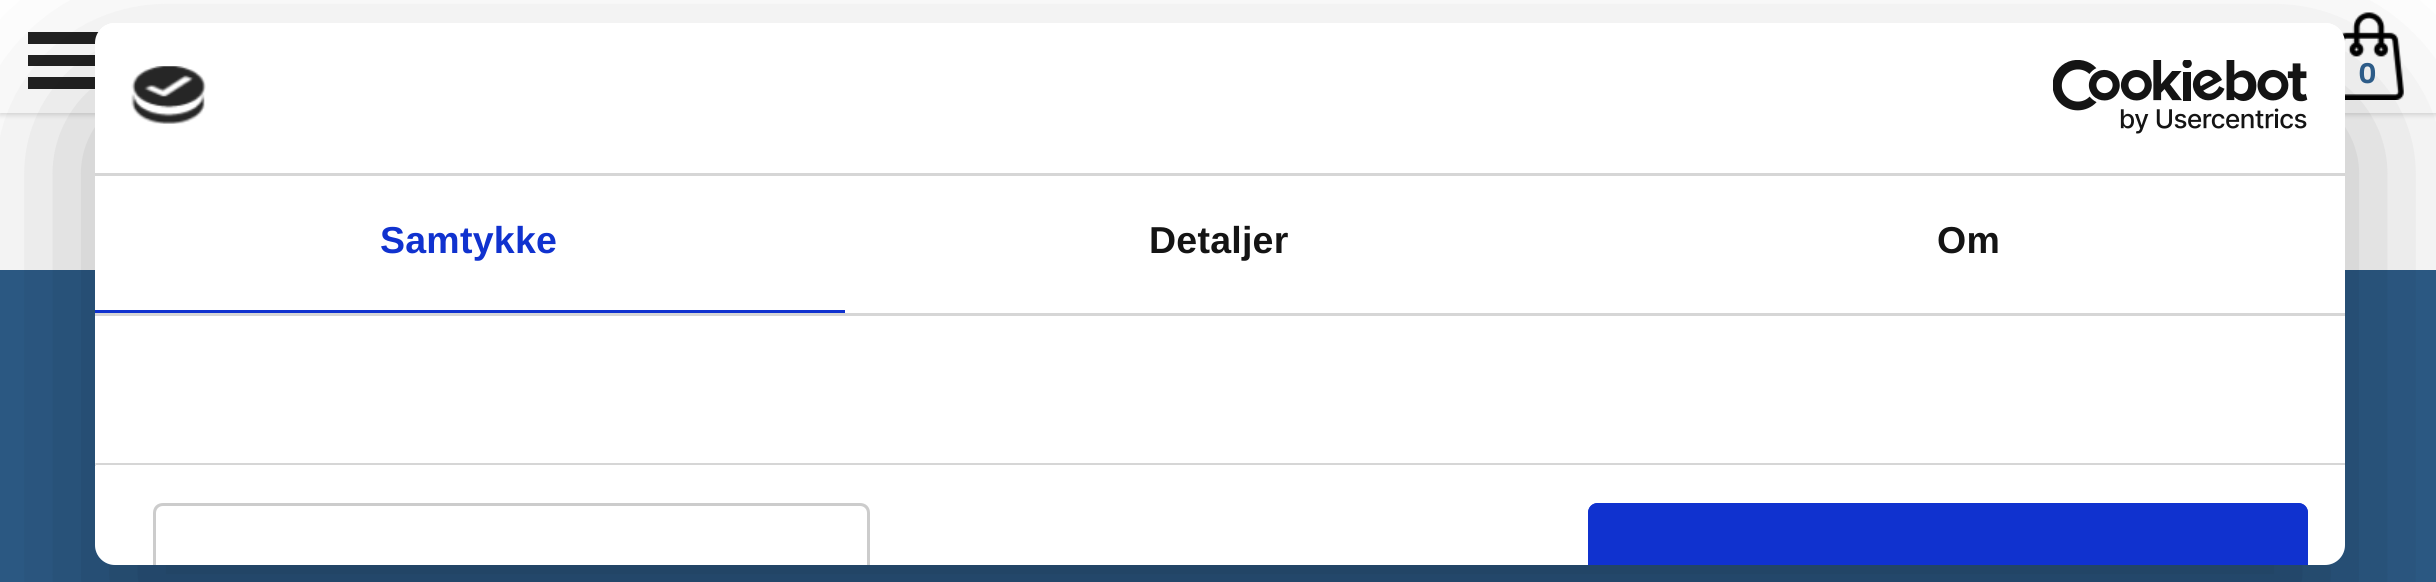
import math
import cairo

surface = cairo.ImageSurface(cairo.FORMAT_RGB24, 2436, 582)
cr = cairo.Context(surface)
options = cairo.FontOptions()
options.set_hint_metrics(cairo.HINT_METRICS_OFF)
options.set_hint_style(cairo.HINT_STYLE_NONE)
cr.set_font_options(options)
cr.set_miter_limit(4)


def rgb(code):
    cr.set_source_rgb(*(v / 255 for v in bytes.fromhex(code[-6:])))


def tracked(x, y, s, letter, word):
    cr.move_to(x, y)
    for ch in s:
        cr.show_text(ch)
        cr.rel_move_to(letter + word * (ch == ' '), 0)


def rrect(x, y, w, h, r):
    cr.new_sub_path()
    for i, (u, v) in enumerate([(x + w - r, y + h - r), (x + r, y + h - r), (x + r, y + r), (x + w - r, y + r)]):
        cr.arc(u, v, r, i * math.pi / 2, (i + 1) * math.pi / 2)
    cr.close_path()


def soft_shadow(x, y, w, h, r, blur, alpha):
    cr.push_group_with_content(cairo.CONTENT_ALPHA)
    cr.set_operator(cairo.OPERATOR_SOURCE)
    for i in range(15, -16, -2):
        e = blur * i / 6
        if min(w, h) + 2 * e > 0:
            cr.set_source_rgba(0, 0, 0, alpha * math.erfc((i - 1) / 8.5) / 2)
            rrect(x - e, y - e, w + 2 * e, h + 2 * e, max(0, min(r + e + blur * .6, min(w, h) / 2 + e)))
            cr.fill()
    cr.mask(cr.pop_group())


def image(path, x, y, w, h):
    cr.save()
    cr.set_source_surface(cairo.ImageSurface.create_from_png(path), x, y)
    cr.rectangle(x, y, w, h)
    cr.fill()
    cr.restore()


rgb("#ffffff")
cr.paint()
rgb("#dbdbdb")
soft_shadow(0, 3, 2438, 112, 0, 2.5, 1)
rgb("#ffffff")
cr.rectangle(0, 0, 2436, 113)
cr.fill()
rgb("#222222")
cr.new_path()
cr.move_to(102, 44)
cr.line_to(102, 32)
cr.line_to(28, 32)
cr.line_to(28, 44)
cr.close_path()
cr.move_to(102, 66)
cr.line_to(102, 55)
cr.line_to(28, 55)
cr.line_to(28, 66)
cr.close_path()
cr.move_to(102, 89)
cr.line_to(102, 77)
cr.line_to(28, 77)
cr.line_to(28, 89)
cr.close_path()
cr.fill()
image("img/1.png", 2342, 12, 62, 88)
rgb("#2d5c88")
cr.rectangle(0, 270, 2436, 312)
cr.fill()
cr.save()
cr.set_fill_rule(cairo.FILL_RULE_EVEN_ODD)
cr.new_path()
cr.move_to(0, 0)
cr.line_to(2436, 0)
cr.line_to(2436, 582)
cr.line_to(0, 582)
cr.close_path()
cr.move_to(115, 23)
cr.line_to(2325, 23)
cr.curve_to(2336, 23, 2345, 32, 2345, 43)
cr.line_to(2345, 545)
cr.curve_to(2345, 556, 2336, 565, 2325, 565)
cr.line_to(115, 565)
cr.curve_to(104, 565, 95, 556, 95, 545)
cr.line_to(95, 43)
cr.curve_to(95, 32, 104, 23, 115, 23)
cr.close_path()
cr.clip()
rgb("#000000")
soft_shadow(95, 103, 2250, 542, 20, 85, 0.3)
cr.restore()
rgb("#ffffff")
rrect(95, 23, 2250, 542, 20)
cr.fill()
rgb("#d6d6d6")
cr.rectangle(95, 173, 2250, 3)
cr.fill()
image("img/2.png", 131, 66, 75, 58)
image("img/3.png", 2053, 60, 255, 74)
for x, y, w, h, color in [
    (95, 313, 2250, 3, "#d6d6d6"),
    (95, 310, 750, 3, "#1032cf"),
    (95, 463, 2250, 2, "#d6d6d6"),
    (95, 463, 1, 3, "#e5e5e5"),
]:
    rgb(color)
    cr.rectangle(x, y, w, h)
    cr.fill()
rgb("#cccccc")
cr.new_path()
cr.move_to(163, 503)
cr.curve_to(157, 503, 153, 507, 153, 513)
cr.line_to(153, 565)
cr.line_to(156, 565)
cr.line_to(156, 513)
cr.curve_to(156, 509, 159, 506, 163, 506)
cr.line_to(860, 506)
cr.curve_to(864, 506, 867, 509, 867, 513)
cr.line_to(867, 565)
cr.line_to(870, 565)
cr.line_to(870, 513)
cr.curve_to(870, 507, 866, 503, 860, 503)
cr.close_path()
cr.fill()
rgb("#1032cf")
cr.new_path()
cr.move_to(1598, 503)
cr.line_to(2298, 503)
cr.curve_to(2303.5, 503, 2308, 507.5, 2308, 513)
cr.line_to(2308, 565)
cr.line_to(1588, 565)
cr.line_to(1588, 513)
cr.curve_to(1588, 507.5, 1592.5, 503, 1598, 503)
cr.close_path()
cr.fill()
cr.new_path()
cr.move_to(1598, 503)
cr.curve_to(1592, 503, 1588, 507, 1588, 513)
cr.line_to(1588, 565)
cr.line_to(1593, 565)
cr.line_to(1593, 513)
cr.curve_to(1593, 510, 1595, 508, 1598, 508)
cr.line_to(2298, 508)
cr.curve_to(2301, 508, 2303, 510, 2303, 513)
cr.line_to(2303, 565)
cr.line_to(2308, 565)
cr.line_to(2308, 513)
cr.curve_to(2308, 507, 2304, 503, 2298, 503)
cr.close_path()
cr.fill()
cr.select_font_face("Titillium Web", cairo.FONT_SLANT_NORMAL, cairo.FONT_WEIGHT_BOLD)
cr.set_font_size(30)
rgb("#2d5c88")
cr.move_to(2359, 83)
cr.show_text("0")
cr.select_font_face("Liberation Sans", cairo.FONT_SLANT_NORMAL, cairo.FONT_WEIGHT_BOLD)
cr.set_font_size(37.5)
rgb("#1032cf")
tracked(380, 253, "Samtykke", 0.25, 0)
rgb("#141414")
tracked(1149, 253, "Detaljer", 0.25, 0)
tracked(1937, 253, "Om", 0.25, 0)
surface.write_to_png("page.png")
